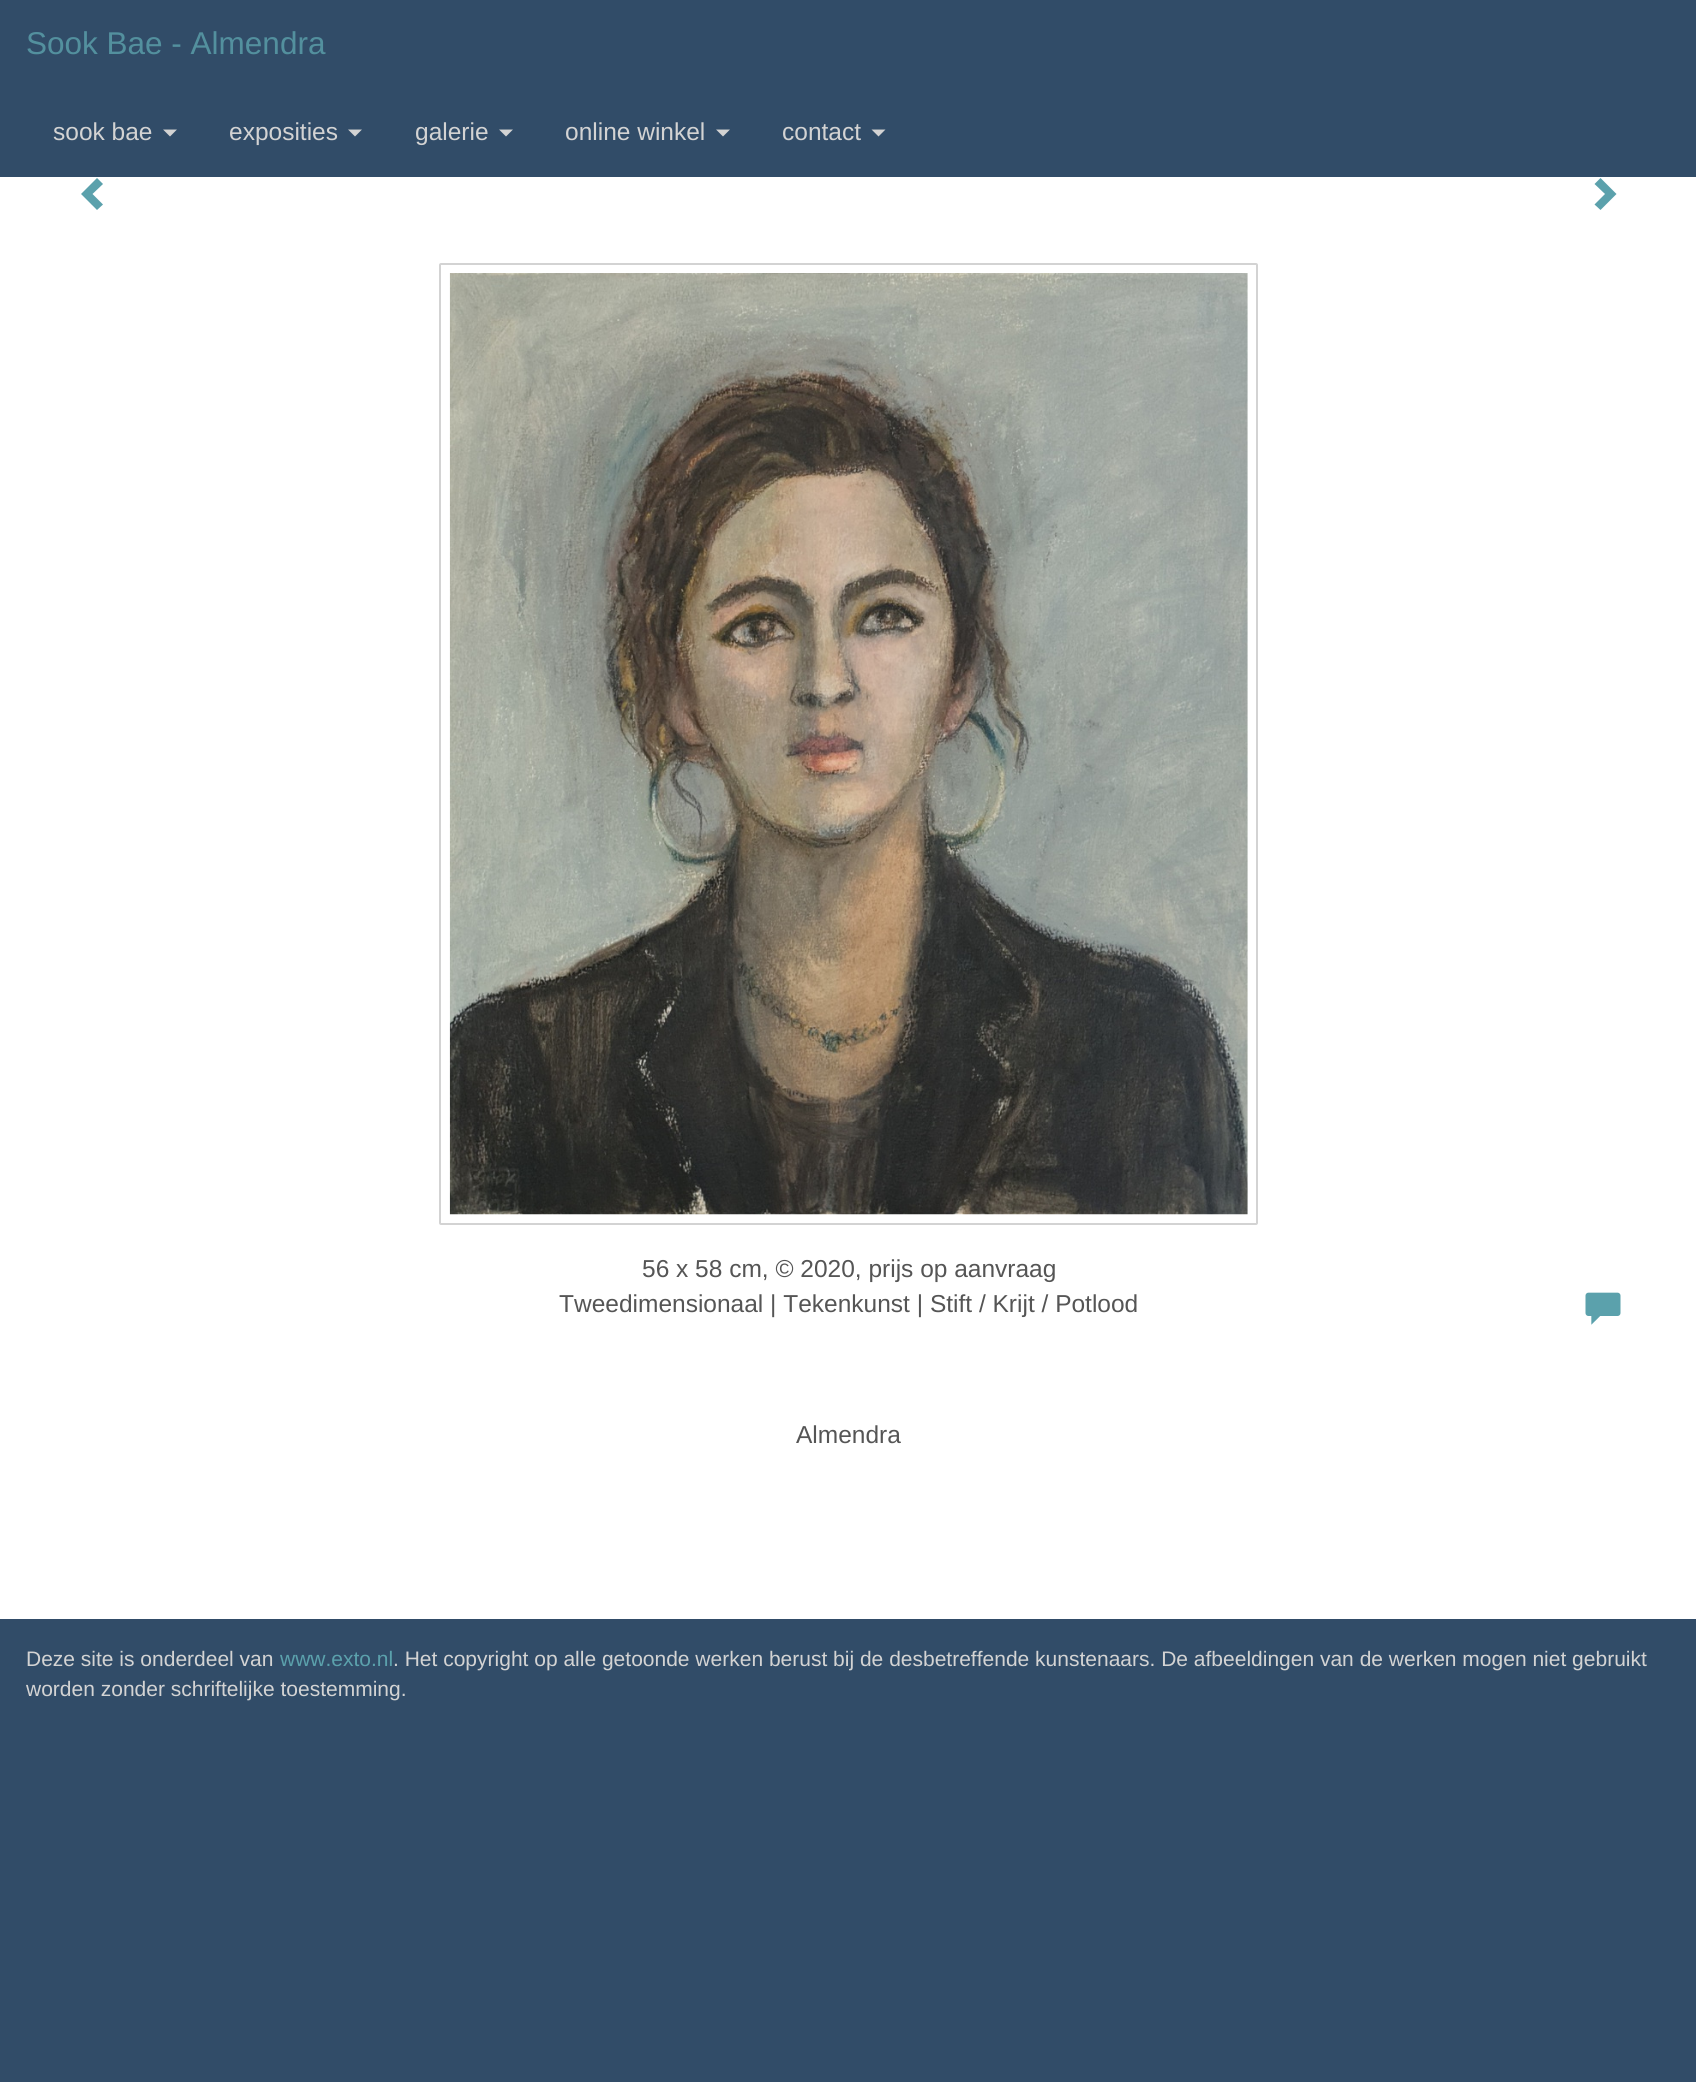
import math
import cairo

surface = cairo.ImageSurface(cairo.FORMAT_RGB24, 1696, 2082)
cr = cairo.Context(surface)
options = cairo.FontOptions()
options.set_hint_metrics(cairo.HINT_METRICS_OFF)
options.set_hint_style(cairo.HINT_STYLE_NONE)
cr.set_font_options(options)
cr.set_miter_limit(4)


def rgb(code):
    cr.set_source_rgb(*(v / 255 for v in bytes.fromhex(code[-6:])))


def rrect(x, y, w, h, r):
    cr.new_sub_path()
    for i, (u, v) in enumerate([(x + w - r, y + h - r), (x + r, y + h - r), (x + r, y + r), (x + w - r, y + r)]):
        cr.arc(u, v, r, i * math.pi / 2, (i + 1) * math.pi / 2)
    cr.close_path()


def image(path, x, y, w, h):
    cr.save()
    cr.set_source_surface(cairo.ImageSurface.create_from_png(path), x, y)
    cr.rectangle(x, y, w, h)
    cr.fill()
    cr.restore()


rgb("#314c68")
cr.paint()
rgb("#d3d3d3")
cr.new_path()
cr.move_to(163, 129.5)
cr.line_to(177, 129.5)
cr.line_to(170, 136.5)
cr.close_path()
cr.fill()
cr.new_path()
cr.move_to(348, 129.5)
cr.line_to(362, 129.5)
cr.line_to(355, 136.5)
cr.close_path()
cr.fill()
cr.new_path()
cr.move_to(499, 129.5)
cr.line_to(513, 129.5)
cr.line_to(506, 136.5)
cr.close_path()
cr.fill()
cr.new_path()
cr.move_to(716, 129.5)
cr.line_to(730, 129.5)
cr.line_to(723, 136.5)
cr.close_path()
cr.fill()
cr.new_path()
cr.move_to(871.5, 129.5)
cr.line_to(885.5, 129.5)
cr.line_to(878.5, 136.5)
cr.close_path()
cr.fill()
rgb("#ffffff")
cr.rectangle(0, 177, 1696, 1442)
cr.fill()
rgb("#5ba1ac")
cr.new_path()
cr.move_to(103, 184)
cr.line_to(92.5, 194)
cr.line_to(103, 204.5)
cr.line_to(97, 210)
cr.line_to(81, 194)
cr.line_to(97, 178)
cr.close_path()
cr.fill()
cr.new_path()
cr.move_to(1616.5, 194)
cr.line_to(1600.5, 210)
cr.line_to(1594.5, 204.5)
cr.line_to(1605, 194)
cr.line_to(1594.5, 184)
cr.line_to(1600.5, 178)
cr.close_path()
cr.fill()
rrect(440, 264, 817, 960, 1)
rgb("#d3d3d3")
cr.stroke()
image("img/1.png", 449, 273, 799, 942)
image("img/2.png", 1585, 1292, 36, 33)
cr.select_font_face("Liberation Sans")
cr.set_font_size(31.5)
rgb("#53909e")
cr.move_to(26, 54)
cr.show_text("Sook Bae - Almendra")
cr.set_font_size(24.5)
rgb("#d3d3d3")
for x, y, s in [
    (53, 140, "sook bae"),
    (229, 140, "exposities"),
    (415, 140, "galerie"),
    (565, 140, "online winkel"),
    (782, 140, "contact"),
]:
    cr.move_to(x, y)
    cr.show_text(s)
rgb("#555555")
for x, y, s in [
    (642, 1277, "56 x 58 cm, © 2020, prijs op aanvraag"),
    (559, 1312, "Tweedimensionaal | Tekenkunst | Stift / Krijt / Potlood"),
    (796, 1443, "Almendra"),
]:
    cr.move_to(x, y)
    cr.show_text(s)
cr.set_font_size(21)
rgb("#d3d3d3")
cr.move_to(26, 1666)
cr.show_text("Deze site is onderdeel van")
rgb("#5ba1ac")
cr.move_to(280, 1666)
cr.show_text("www.exto.nl")
rgb("#d3d3d3")
cr.move_to(393, 1666)
cr.show_text(". Het copyright op alle getoonde werken berust bij de desbetreffende kunstenaars. De afbeeldingen van de werken mogen niet gebruikt")
cr.move_to(26, 1696)
cr.show_text("worden zonder schriftelijke toestemming.")
surface.write_to_png("page.png")
